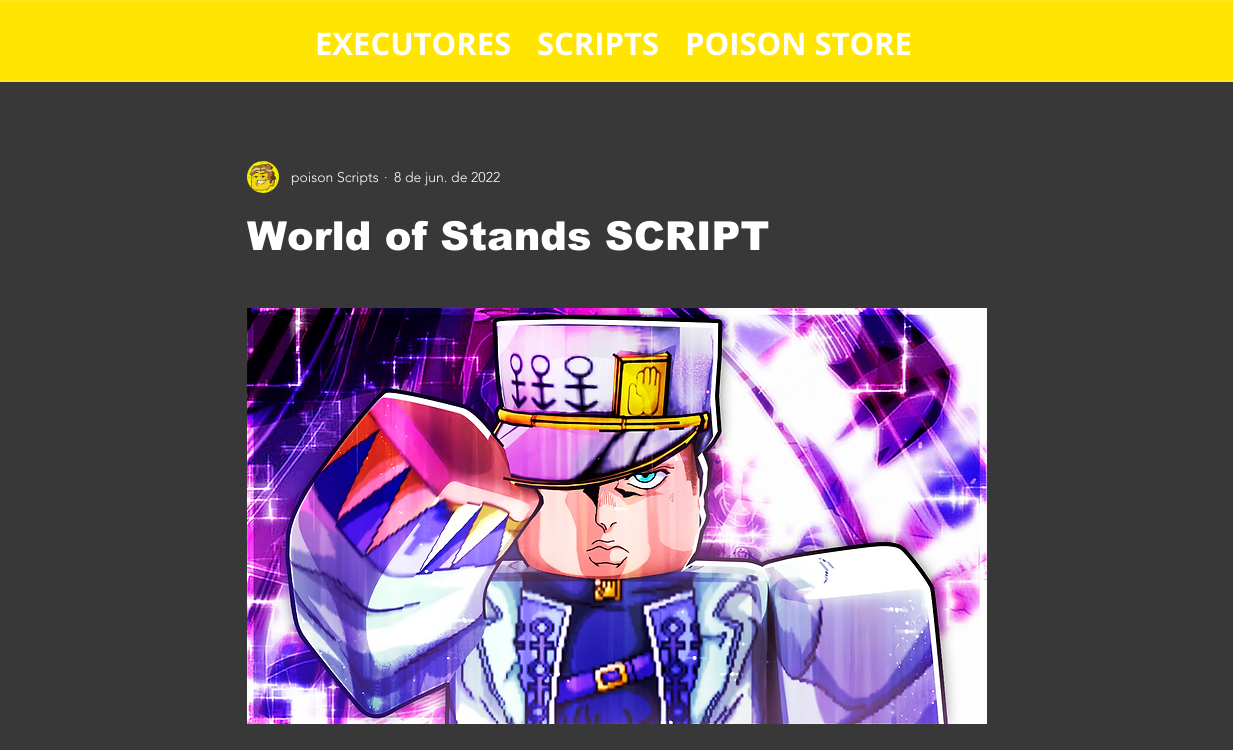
import math
import cairo

surface = cairo.ImageSurface(cairo.FORMAT_RGB24, 1233, 750)
cr = cairo.Context(surface)
options = cairo.FontOptions()
options.set_hint_metrics(cairo.HINT_METRICS_OFF)
options.set_hint_style(cairo.HINT_STYLE_NONE)
cr.set_font_options(options)
cr.set_miter_limit(4)


def rgb(code):
    cr.set_source_rgb(*(v / 255 for v in bytes.fromhex(code[-6:])))


def image(path, x, y, w, h):
    cr.save()
    cr.set_source_surface(cairo.ImageSurface.create_from_png(path), x, y)
    cr.rectangle(x, y, w, h)
    cr.fill()
    cr.restore()


rgb("#383838")
cr.paint()
rgb("#ffe81f")
cr.rectangle(0, 0, 1233, 82)
cr.fill()
rgb("#ffe500")
cr.rectangle(0, 2, 1233, 78)
cr.fill()
image("img/1.png", 247, 161, 32, 32)
image("img/2.png", 247, 308, 740, 416)
cr.select_font_face("Open Sans", cairo.FONT_SLANT_NORMAL, cairo.FONT_WEIGHT_BOLD)
cr.set_font_size(31)
rgb("#ffffff")
for x, y, s in [
    (315, 55, "EXECUTORES"),
    (537, 55, "SCRIPTS"),
    (685, 55, "POISON STORE"),
]:
    cr.move_to(x, y)
    cr.show_text(s)
cr.select_font_face("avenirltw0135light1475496 Light")
cr.set_font_size(14)
for x, y, s in [
    (291, 182, "poison Scripts"),
    (384, 182, "·"),
    (394, 182, "8 de jun. de 2022"),
]:
    cr.move_to(x, y)
    cr.show_text(s)
cr.select_font_face("arial Black")
cr.set_font_size(40)
cr.move_to(247, 250)
cr.show_text("World of Stands SCRIPT")
surface.write_to_png("page.png")
